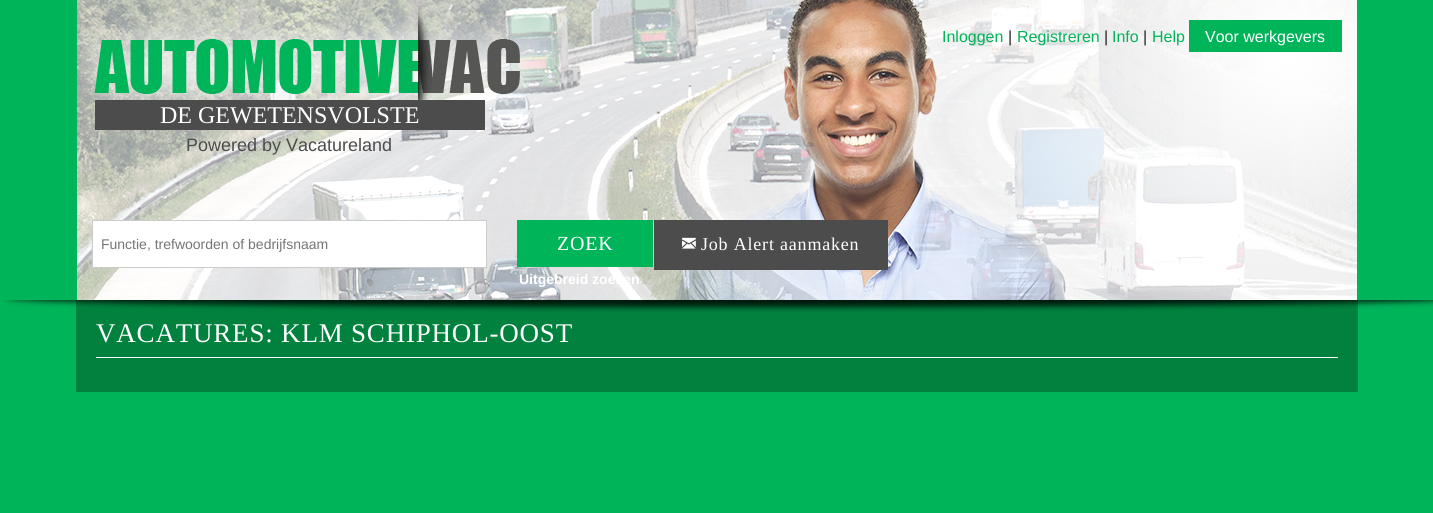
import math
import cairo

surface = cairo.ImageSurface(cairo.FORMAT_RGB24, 1433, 513)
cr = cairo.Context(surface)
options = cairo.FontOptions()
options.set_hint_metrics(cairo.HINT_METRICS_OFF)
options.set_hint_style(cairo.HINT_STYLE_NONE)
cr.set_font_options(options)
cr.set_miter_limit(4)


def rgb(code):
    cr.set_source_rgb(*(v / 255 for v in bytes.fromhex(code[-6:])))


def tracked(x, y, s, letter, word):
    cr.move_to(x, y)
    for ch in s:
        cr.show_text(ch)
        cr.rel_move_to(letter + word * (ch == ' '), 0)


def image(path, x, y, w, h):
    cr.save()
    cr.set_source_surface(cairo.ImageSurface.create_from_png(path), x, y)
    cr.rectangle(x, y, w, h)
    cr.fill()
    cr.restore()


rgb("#00b45a")
cr.paint()
image("img/1.png", 77, 0, 1280, 300)
rgb("#00b45a")
cr.rectangle(1189, 20, 153, 32)
cr.fill()
rgb("#4c4c4c")
cr.rectangle(95, 100, 390, 30)
cr.fill()
rgb("#ffffff")
cr.rectangle(92.5, 220.5, 394, 47)
cr.fill_preserve()
rgb("#cccccc")
cr.set_line_width(1)
cr.stroke()
rgb("#00b45a")
cr.rectangle(517, 220, 136, 47)
cr.fill()
rgb("#4c4c4c")
cr.rectangle(654, 220, 234, 50)
cr.fill()
image("img/2.png", 682, 237, 14, 12)
rgb("#00823e")
cr.rectangle(76, 300, 1282, 92)
cr.fill()
rgb("#ffffff")
cr.rectangle(96, 357, 1242, 1)
cr.fill()
image("img/3.png", 3, 300, 1430, 12)
cr.select_font_face("Liberation Sans")
cr.set_font_size(16)
rgb("#00b45a")
cr.move_to(942, 42)
cr.show_text("Inloggen")
rgb("#222222")
cr.move_to(1008, 42)
cr.show_text("|")
rgb("#00b45a")
cr.move_to(1017, 42)
cr.show_text("Registreren")
rgb("#222222")
cr.move_to(1104, 42)
cr.show_text("|")
rgb("#00b45a")
cr.move_to(1112, 42)
cr.show_text("Info")
rgb("#222222")
cr.move_to(1143, 42)
cr.show_text("|")
rgb("#00b45a")
cr.move_to(1152, 42)
cr.show_text("Help")
rgb("#ffffff")
cr.move_to(1205, 42)
cr.show_text("Voor werkgevers")
cr.select_font_face("Liberation Serif")
cr.set_font_size(24)
cr.move_to(160, 123)
cr.show_text("DE GEWETENSVOLSTE")
cr.select_font_face("Liberation Sans")
cr.set_font_size(18)
rgb("#4c4c4c")
cr.move_to(186, 151)
cr.show_text("Powered by Vacatureland")
cr.set_font_size(14)
rgb("#757575")
cr.move_to(101, 249)
cr.show_text("Functie, trefwoorden of bedrijfsnaam")
cr.select_font_face("Liberation Serif")
cr.set_font_size(20)
rgb("#ffffff")
tracked(557, 250, "ZOEK", 0.8, 0)
cr.select_font_face("Liberation Sans", cairo.FONT_SLANT_NORMAL, cairo.FONT_WEIGHT_BOLD)
cr.set_font_size(14)
cr.move_to(519, 284)
cr.show_text("Uitgebreid zoeken")
cr.select_font_face("Liberation Serif")
cr.set_font_size(18)
tracked(701, 250, "Job Alert aanmaken", 0.8, 0)
cr.set_font_size(27)
tracked(96, 342, "VACATURES: KLM SCHIPHOL-OOST", 0.8, 0)
surface.write_to_png("page.png")
